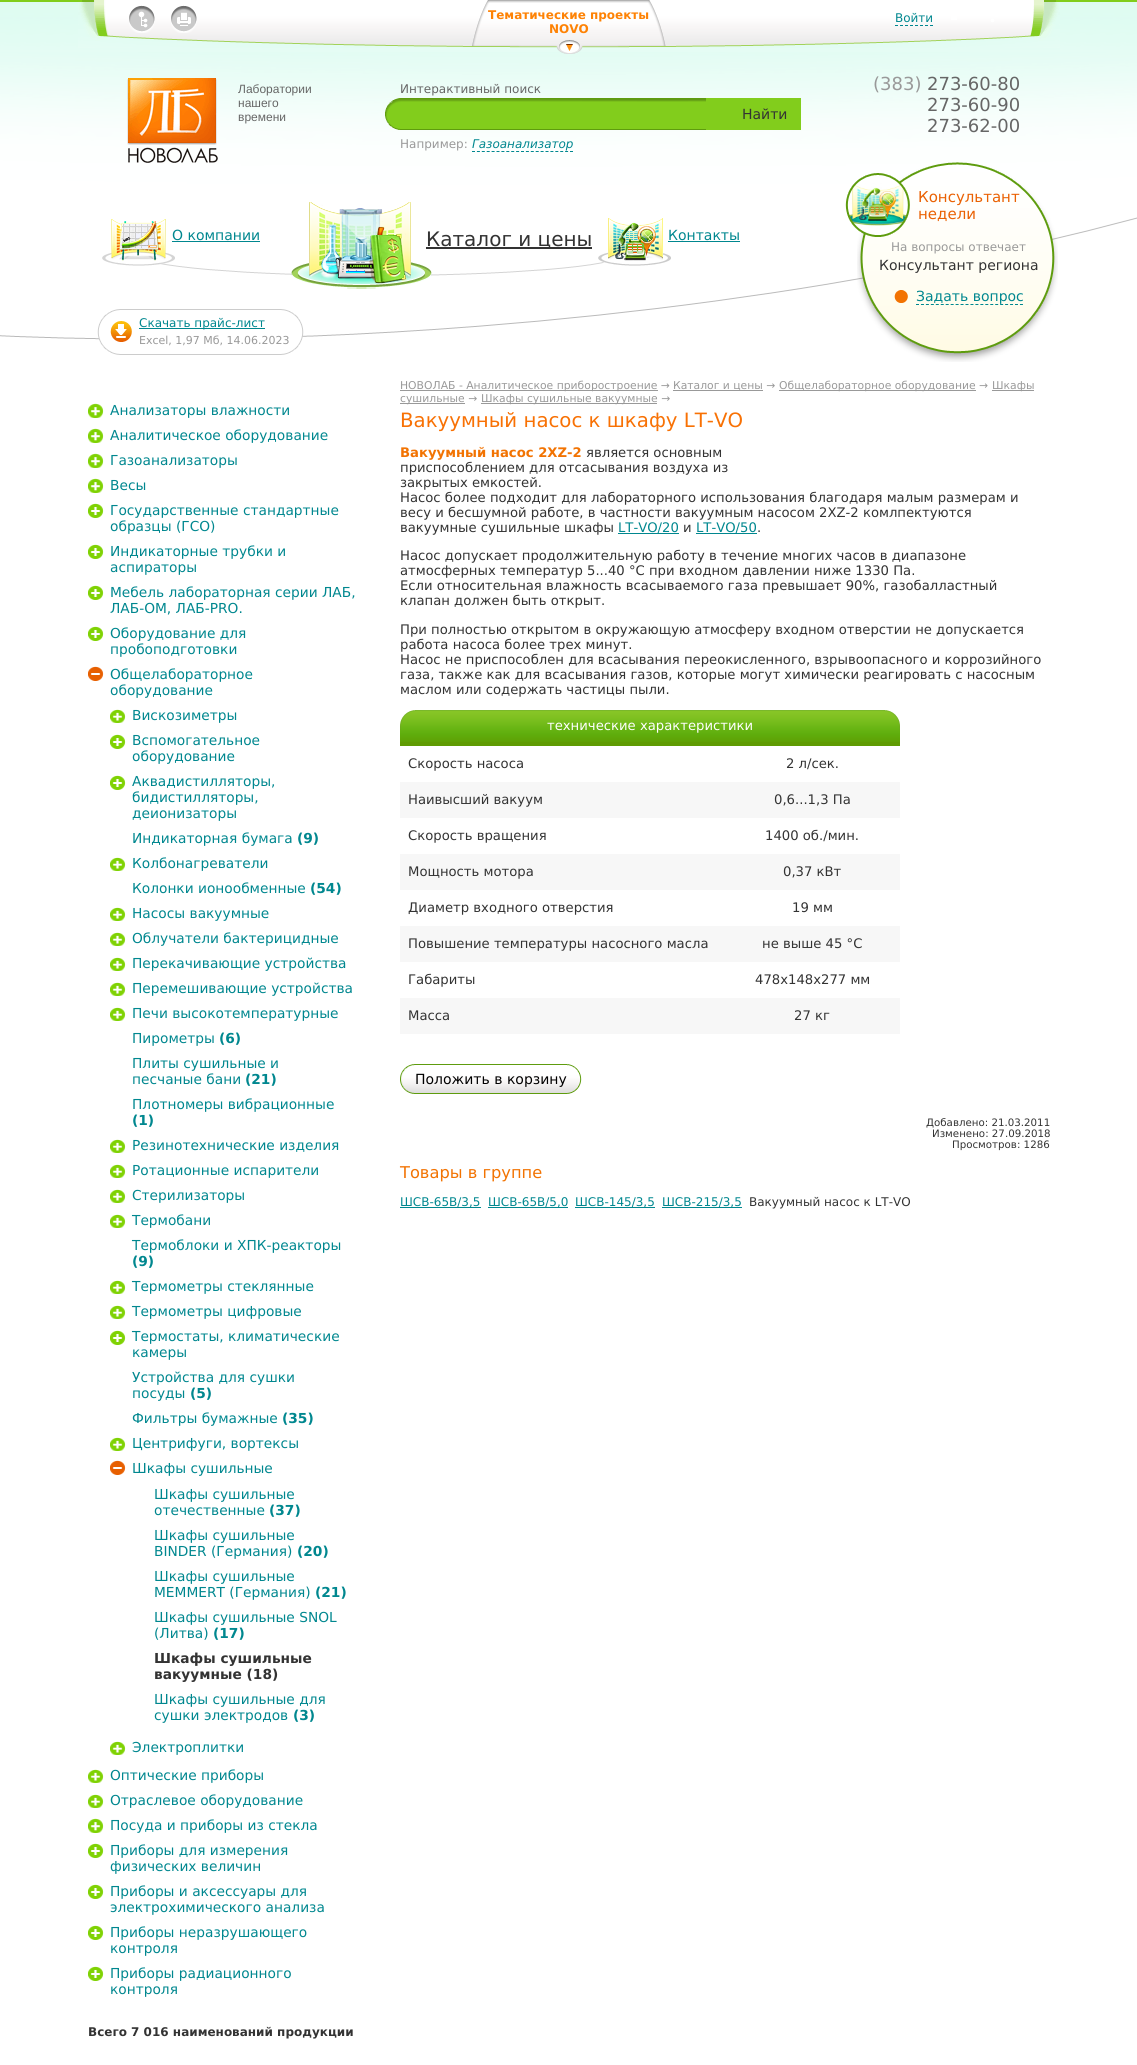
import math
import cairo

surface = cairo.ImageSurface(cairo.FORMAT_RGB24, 1137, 2065)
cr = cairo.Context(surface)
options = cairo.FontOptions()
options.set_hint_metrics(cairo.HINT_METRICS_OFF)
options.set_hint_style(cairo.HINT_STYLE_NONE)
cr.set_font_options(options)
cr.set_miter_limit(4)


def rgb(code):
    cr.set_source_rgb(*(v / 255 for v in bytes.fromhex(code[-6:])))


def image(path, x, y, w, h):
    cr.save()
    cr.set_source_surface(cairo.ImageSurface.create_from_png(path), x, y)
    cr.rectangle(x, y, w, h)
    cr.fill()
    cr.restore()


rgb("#ffffff")
cr.paint()
image("img/1.png", 0, 0, 1137, 52)
image("img/2.png", 0, 52, 1137, 288)
image("img/3.png", 510, 46, 119, 2)
image("img/4.png", 78, 0, 432, 48)
image("img/5.png", 629, 0, 431, 48)
image("img/6.png", 129, 5, 26, 28)
image("img/7.png", 171, 5, 26, 28)
image("img/8.png", 472, 0, 194, 54)
cr.new_path()
cr.move_to(895, 25.5)
cr.line_to(933, 25.5)
rgb("#00878f")
cr.set_line_width(1)
cr.set_dash([3, 2])
cr.stroke()
image("img/9.png", 127, 78, 91, 85)
rgb("#82cd1c")
cr.rectangle(385, 98, 416, 32)
cr.fill()
image("img/10.png", 385, 98, 321, 32)
cr.new_path()
cr.move_to(472, 151.5)
cr.line_to(573, 151.5)
rgb("#00878f")
cr.set_dash([3, 1.9])
cr.stroke()
image("img/11.png", 160, 262, 444, 14)
image("img/12.png", 102, 219, 73, 47)
cr.rectangle(172, 241, 88, 1)
cr.fill()
image("img/13.png", 291, 202, 141, 87)
rgb("#333333")
cr.rectangle(426, 247, 166, 2)
cr.fill()
image("img/14.png", 598, 218, 73, 48)
rgb("#00878f")
cr.rectangle(668, 241, 72, 1)
cr.fill()
image("img/15.png", 857, 162, 201, 200)
image("img/17.png", 847, 174, 61, 61)
image("img/16.png", 845, 173, 65, 64)
image("img/18.png", 894, 290, 14, 13)
cr.new_path()
cr.move_to(916, 304.5)
cr.line_to(1023, 304.5)
cr.set_dash([3, 1.95])
cr.stroke()
image("img/19.png", 97, 309, 207, 46)
image("img/20.png", 110, 321, 22, 21)
cr.rectangle(139, 328, 126, 1)
cr.fill()
image("img/21.png", 88, 403, 16, 15)
image("img/21.png", 88, 428, 16, 15)
image("img/21.png", 88, 453, 16, 15)
image("img/21.png", 88, 478, 16, 15)
image("img/22.png", 88, 503, 16, 15)
image("img/22.png", 88, 544, 16, 15)
image("img/22.png", 88, 585, 16, 15)
image("img/22.png", 88, 626, 16, 15)
image("img/23.png", 88, 666, 16, 15)
image("img/24.png", 110, 709, 16, 14)
image("img/22.png", 110, 734, 16, 15)
image("img/22.png", 110, 775, 16, 15)
image("img/24.png", 110, 857, 16, 14)
image("img/24.png", 110, 907, 16, 14)
image("img/24.png", 110, 932, 16, 14)
image("img/24.png", 110, 957, 16, 14)
image("img/24.png", 110, 982, 16, 14)
image("img/24.png", 110, 1007, 16, 14)
image("img/24.png", 110, 1139, 16, 14)
image("img/24.png", 110, 1164, 16, 14)
image("img/24.png", 110, 1189, 16, 14)
image("img/24.png", 110, 1214, 16, 14)
image("img/24.png", 110, 1280, 16, 14)
image("img/24.png", 110, 1305, 16, 14)
image("img/22.png", 110, 1330, 16, 15)
image("img/24.png", 110, 1437, 16, 14)
image("img/23.png", 110, 1460, 16, 15)
image("img/24.png", 110, 1741, 16, 14)
image("img/24.png", 88, 1769, 16, 14)
image("img/24.png", 88, 1794, 16, 14)
image("img/21.png", 88, 1818, 16, 15)
image("img/22.png", 88, 1843, 16, 15)
image("img/22.png", 88, 1884, 16, 15)
image("img/22.png", 88, 1925, 16, 15)
image("img/22.png", 88, 1966, 16, 15)
for x, y, w, h, color in [
    (400, 390, 258, 1, "#999999"),
    (673, 390, 90, 1, "#999999"),
    (779, 390, 197, 1, "#999999"),
    (992, 390, 42, 1, "#999999"),
    (400, 403, 65, 1, "#999999"),
    (481, 403, 176, 1, "#999999"),
    (618, 533, 61, 1, "#00878f"),
    (696, 533, 61, 1, "#00878f"),
    (400, 742, 500, 4, "#5f9b03"),
]:
    rgb(color)
    cr.rectangle(x, y, w, h)
    cr.fill()
image("img/25.png", 400, 710, 500, 32)
image("img/26.png", 885, 710, 15, 20)
for x, y, w, h, color in [
    (400, 782, 500, 36, "#f7f7f7"),
    (400, 854, 500, 36, "#f7f7f7"),
    (400, 926, 500, 36, "#f7f7f7"),
    (400, 998, 500, 36, "#f7f7f7"),
]:
    rgb(color)
    cr.rectangle(x, y, w, h)
    cr.fill()
image("img/27.png", 400, 1064, 167, 30)
image("img/28.png", 567, 1064, 15, 30)
for x, y, w, h, color in [
    (400, 1207, 81, 1, "#00878f"),
    (488, 1207, 80, 1, "#00878f"),
    (575, 1207, 80, 1, "#00878f"),
    (662, 1207, 80, 1, "#00878f"),
]:
    rgb(color)
    cr.rectangle(x, y, w, h)
    cr.fill()
cr.select_font_face("DejaVu Sans", cairo.FONT_SLANT_NORMAL, cairo.FONT_WEIGHT_BOLD)
cr.set_font_size(12)
rgb("#fe8204")
cr.move_to(488, 19)
cr.show_text("Тематические проекты")
cr.move_to(549, 33)
cr.show_text("NOVO")
cr.select_font_face("DejaVu Sans")
rgb("#00878f")
cr.move_to(895, 22)
cr.show_text("Войти")
cr.select_font_face("Liberation Sans")
rgb("#666666")
for x, y, s in [
    (238, 93, "Лаборатории"),
    (238, 107, "нашего"),
    (238, 121, "времени"),
]:
    cr.move_to(x, y)
    cr.show_text(s)
cr.select_font_face("DejaVu Sans")
cr.move_to(400, 93)
cr.show_text("Интерактивный поиск")
cr.set_font_size(14)
rgb("#333333")
cr.move_to(742, 119)
cr.show_text("Найти")
cr.set_font_size(12)
rgb("#999999")
cr.move_to(400, 148)
cr.show_text("Например:")
cr.select_font_face("DejaVu Sans", cairo.FONT_SLANT_ITALIC)
rgb("#00878f")
cr.move_to(472, 148)
cr.show_text("Газоанализатор")
cr.select_font_face("DejaVu Sans")
cr.set_font_size(18)
rgb("#999999")
cr.move_to(873, 90)
cr.show_text("(383)")
rgb("#666666")
for x, y, s in [
    (927, 90, "273-60-80"),
    (927, 111, "273-60-90"),
    (927, 132, "273-62-00"),
]:
    cr.move_to(x, y)
    cr.show_text(s)
cr.set_font_size(14)
rgb("#00878f")
cr.move_to(172, 240)
cr.show_text("О компании")
cr.set_font_size(20)
rgb("#333333")
cr.move_to(426, 246)
cr.show_text("Каталог и цены")
cr.set_font_size(14)
rgb("#00878f")
cr.move_to(668, 240)
cr.show_text("Контакты")
cr.set_font_size(15)
rgb("#ea6103")
cr.move_to(918, 202)
cr.show_text("Консультант")
cr.move_to(918, 219)
cr.show_text("недели")
cr.set_font_size(12)
rgb("#999999")
cr.move_to(891, 251)
cr.show_text("На вопросы отвечает")
cr.set_font_size(14)
rgb("#333333")
cr.move_to(879, 270)
cr.show_text("Консультант региона")
rgb("#00878f")
cr.move_to(916, 301)
cr.show_text("Задать вопрос")
cr.set_font_size(12)
cr.move_to(139, 327)
cr.show_text("Скачать прайс-лист")
cr.set_font_size(11)
rgb("#999999")
cr.move_to(139, 344)
cr.show_text("Excel, 1,97 Мб, 14.06.2023")
cr.set_font_size(13.75)
rgb("#00878f")
for x, y, s in [
    (110, 415, "Анализаторы влажности"),
    (110, 440, "Аналитическое оборудование"),
    (110, 465, "Газоанализаторы"),
    (110, 490, "Весы"),
    (110, 515, "Государственные стандартные"),
    (110, 531, "образцы (ГСО)"),
    (110, 556, "Индикаторные трубки и"),
    (110, 572, "аспираторы"),
    (110, 597, "Мебель лабораторная серии ЛАБ,"),
    (110, 613, "ЛАБ-ОМ, ЛАБ-PRO."),
    (110, 638, "Оборудование для"),
    (110, 654, "пробоподготовки"),
    (110, 679, "Общелабораторное"),
    (110, 695, "оборудование"),
    (132, 720, "Вискозиметры"),
    (132, 745, "Вспомогательное"),
    (132, 761, "оборудование"),
    (132, 786, "Аквадистилляторы,"),
    (132, 802, "бидистилляторы,"),
    (132, 818, "деионизаторы"),
    (132, 843, "Индикаторная бумага"),
]:
    cr.move_to(x, y)
    cr.show_text(s)
cr.select_font_face("DejaVu Sans", cairo.FONT_SLANT_NORMAL, cairo.FONT_WEIGHT_BOLD)
cr.move_to(297, 843)
cr.show_text("(9)")
cr.select_font_face("DejaVu Sans")
cr.move_to(132, 868)
cr.show_text("Колбонагреватели")
cr.move_to(132, 893)
cr.show_text("Колонки ионообменные")
cr.select_font_face("DejaVu Sans", cairo.FONT_SLANT_NORMAL, cairo.FONT_WEIGHT_BOLD)
cr.move_to(310, 893)
cr.show_text("(54)")
cr.select_font_face("DejaVu Sans")
for x, y, s in [
    (132, 918, "Насосы вакуумные"),
    (132, 943, "Облучатели бактерицидные"),
    (132, 968, "Перекачивающие устройства"),
    (132, 993, "Перемешивающие устройства"),
    (132, 1018, "Печи высокотемпературные"),
    (132, 1043, "Пирометры"),
]:
    cr.move_to(x, y)
    cr.show_text(s)
cr.select_font_face("DejaVu Sans", cairo.FONT_SLANT_NORMAL, cairo.FONT_WEIGHT_BOLD)
cr.move_to(219, 1043)
cr.show_text("(6)")
cr.select_font_face("DejaVu Sans")
cr.move_to(132, 1068)
cr.show_text("Плиты сушильные и")
cr.move_to(132, 1084)
cr.show_text("песчаные бани")
cr.select_font_face("DejaVu Sans", cairo.FONT_SLANT_NORMAL, cairo.FONT_WEIGHT_BOLD)
cr.move_to(245, 1084)
cr.show_text("(21)")
cr.select_font_face("DejaVu Sans")
cr.move_to(132, 1109)
cr.show_text("Плотномеры вибрационные")
cr.select_font_face("DejaVu Sans", cairo.FONT_SLANT_NORMAL, cairo.FONT_WEIGHT_BOLD)
cr.move_to(132, 1125)
cr.show_text("(1)")
cr.select_font_face("DejaVu Sans")
for x, y, s in [
    (132, 1150, "Резинотехнические изделия"),
    (132, 1175, "Ротационные испарители"),
    (132, 1200, "Стерилизаторы"),
    (132, 1225, "Термобани"),
    (132, 1250, "Термоблоки и ХПК-реакторы"),
]:
    cr.move_to(x, y)
    cr.show_text(s)
cr.select_font_face("DejaVu Sans", cairo.FONT_SLANT_NORMAL, cairo.FONT_WEIGHT_BOLD)
cr.move_to(132, 1266)
cr.show_text("(9)")
cr.select_font_face("DejaVu Sans")
for x, y, s in [
    (132, 1291, "Термометры стеклянные"),
    (132, 1316, "Термометры цифровые"),
    (132, 1341, "Термостаты, климатические"),
    (132, 1357, "камеры"),
    (132, 1382, "Устройства для сушки"),
    (132, 1398, "посуды"),
]:
    cr.move_to(x, y)
    cr.show_text(s)
cr.select_font_face("DejaVu Sans", cairo.FONT_SLANT_NORMAL, cairo.FONT_WEIGHT_BOLD)
cr.move_to(190, 1398)
cr.show_text("(5)")
cr.select_font_face("DejaVu Sans")
cr.move_to(132, 1423)
cr.show_text("Фильтры бумажные")
cr.select_font_face("DejaVu Sans", cairo.FONT_SLANT_NORMAL, cairo.FONT_WEIGHT_BOLD)
cr.move_to(282, 1423)
cr.show_text("(35)")
cr.select_font_face("DejaVu Sans")
for x, y, s in [
    (132, 1448, "Центрифуги, вортексы"),
    (132, 1473, "Шкафы сушильные"),
    (154, 1499, "Шкафы сушильные"),
    (154, 1515, "отечественные"),
]:
    cr.move_to(x, y)
    cr.show_text(s)
cr.select_font_face("DejaVu Sans", cairo.FONT_SLANT_NORMAL, cairo.FONT_WEIGHT_BOLD)
cr.move_to(269, 1515)
cr.show_text("(37)")
cr.select_font_face("DejaVu Sans")
cr.move_to(154, 1540)
cr.show_text("Шкафы сушильные")
cr.move_to(154, 1556)
cr.show_text("BINDER (Германия)")
cr.select_font_face("DejaVu Sans", cairo.FONT_SLANT_NORMAL, cairo.FONT_WEIGHT_BOLD)
cr.move_to(297, 1556)
cr.show_text("(20)")
cr.select_font_face("DejaVu Sans")
cr.move_to(154, 1581)
cr.show_text("Шкафы сушильные")
cr.move_to(154, 1597)
cr.show_text("MEMMERT (Германия)")
cr.select_font_face("DejaVu Sans", cairo.FONT_SLANT_NORMAL, cairo.FONT_WEIGHT_BOLD)
cr.move_to(315, 1597)
cr.show_text("(21)")
cr.select_font_face("DejaVu Sans")
cr.move_to(154, 1622)
cr.show_text("Шкафы сушильные SNOL")
cr.move_to(154, 1638)
cr.show_text("(Литва)")
cr.select_font_face("DejaVu Sans", cairo.FONT_SLANT_NORMAL, cairo.FONT_WEIGHT_BOLD)
cr.move_to(213, 1638)
cr.show_text("(17)")
rgb("#333333")
cr.move_to(154, 1663)
cr.show_text("Шкафы сушильные")
cr.move_to(154, 1679)
cr.show_text("вакуумные (18)")
cr.select_font_face("DejaVu Sans")
rgb("#00878f")
cr.move_to(154, 1704)
cr.show_text("Шкафы сушильные для")
cr.move_to(154, 1720)
cr.show_text("сушки электродов")
cr.select_font_face("DejaVu Sans", cairo.FONT_SLANT_NORMAL, cairo.FONT_WEIGHT_BOLD)
cr.move_to(293, 1720)
cr.show_text("(3)")
cr.select_font_face("DejaVu Sans")
for x, y, s in [
    (132, 1752, "Электроплитки"),
    (110, 1780, "Оптические приборы"),
    (110, 1805, "Отраслевое оборудование"),
    (110, 1830, "Посуда и приборы из стекла"),
    (110, 1855, "Приборы для измерения"),
    (110, 1871, "физических величин"),
    (110, 1896, "Приборы и аксессуары для"),
    (110, 1912, "электрохимического анализа"),
    (110, 1937, "Приборы неразрушающего"),
    (110, 1953, "контроля"),
    (110, 1978, "Приборы радиационного"),
    (110, 1994, "контроля"),
]:
    cr.move_to(x, y)
    cr.show_text(s)
cr.select_font_face("DejaVu Sans", cairo.FONT_SLANT_NORMAL, cairo.FONT_WEIGHT_BOLD)
cr.set_font_size(12)
rgb("#333333")
cr.move_to(88, 2036)
cr.show_text("Всего 7 016 наименований продукции")
cr.select_font_face("DejaVu Sans")
cr.set_font_size(10.8)
rgb("#999999")
for x, y, s in [
    (400, 389, "НОВОЛАБ - Аналитическое приборостроение →"),
    (673, 389, "Каталог и цены →"),
    (779, 389, "Общелабораторное оборудование →"),
    (992, 389, "Шкафы"),
    (400, 402, "сушильные →"),
    (481, 402, "Шкафы сушильные вакуумные →"),
]:
    cr.move_to(x, y)
    cr.show_text(s)
cr.set_font_size(19.75)
rgb("#f87104")
cr.move_to(400, 427)
cr.show_text("Вакуумный насос к шкафу LT-VO")
cr.select_font_face("DejaVu Sans", cairo.FONT_SLANT_NORMAL, cairo.FONT_WEIGHT_BOLD)
cr.set_font_size(13.2)
rgb("#f27302")
cr.move_to(400, 457)
cr.show_text("Вакуумный насос 2XZ-2")
cr.select_font_face("DejaVu Sans")
rgb("#333333")
for x, y, s in [
    (586, 457, "является основным"),
    (400, 472, "приспособлением для отсасывания воздуха из"),
    (400, 487, "закрытых емкостей."),
    (400, 502, "Насос более подходит для лабораторного использования благодаря малым размерам и"),
    (400, 517, "весу и бесшумной работе, в частности вакуумным насосом 2XZ-2 комлпектуются"),
    (400, 532, "вакуумные сушильные шкафы"),
]:
    cr.move_to(x, y)
    cr.show_text(s)
rgb("#00878f")
cr.move_to(618, 532)
cr.show_text("LT-VO/20")
rgb("#333333")
cr.move_to(683, 532)
cr.show_text("и")
rgb("#00878f")
cr.move_to(696, 532)
cr.show_text("LT-VO/50")
rgb("#333333")
for x, y, s in [
    (757, 532, "."),
    (400, 560, "Насос допускает продолжительную работу в течение многих часов в диапазоне"),
    (400, 575, "атмосферных температур 5...40 °С при входном давлении ниже 1330 Па."),
    (400, 590, "Если относительная влажность всасываемого газа превышает 90%, газобалластный"),
    (400, 605, "клапан должен быть открыт."),
    (400, 634, "При полностью открытом в окружающую атмосферу входном отверстии не допускается"),
    (400, 649, "работа насоса более трех минут."),
    (400, 664, "Насос не приспособлен для всасывания переокисленного, взрывоопасного и коррозийного"),
    (400, 679, "газа, также как для всасывания газов, которые могут химически реагировать с насосным"),
    (400, 694, "маслом или содержать частицы пыли."),
]:
    cr.move_to(x, y)
    cr.show_text(s)
rgb("#ffffff")
cr.move_to(547, 730)
cr.show_text("технические характеристики")
rgb("#333333")
for x, y, s in [
    (408, 768, "Скорость насоса"),
    (786, 768, "2 л/сек."),
    (408, 804, "Наивысший вакуум"),
    (774, 804, "0,6...1,3 Па"),
    (408, 840, "Скорость вращения"),
    (765, 840, "1400 об./мин."),
    (408, 876, "Мощность мотора"),
    (783, 876, "0,37 кВт"),
    (408, 912, "Диаметр входного отверстия"),
    (792, 912, "19 мм"),
    (408, 948, "Повышение температуры насосного масла"),
    (762, 948, "не выше 45 °С"),
    (408, 984, "Габариты"),
    (755, 984, "478х148х277 мм"),
    (408, 1020, "Масса"),
    (794, 1020, "27 кг"),
]:
    cr.move_to(x, y)
    cr.show_text(s)
cr.set_font_size(14)
rgb("#000000")
cr.move_to(415, 1084)
cr.show_text("Положить в корзину")
cr.set_font_size(10.25)
rgb("#333333")
for x, y, s in [
    (926, 1126, "Добавлено: 21.03.2011"),
    (932, 1137, "Изменено: 27.09.2018"),
    (952, 1148, "Просмотров: 1286"),
]:
    cr.move_to(x, y)
    cr.show_text(s)
cr.set_font_size(16.25)
rgb("#f27302")
cr.move_to(400, 1178)
cr.show_text("Товары в группе")
cr.set_font_size(12)
rgb("#00878f")
for x, y, s in [
    (400, 1206, "ШСВ-65В/3,5"),
    (488, 1206, "ШСВ-65В/5,0"),
    (575, 1206, "ШСВ-145/3,5"),
    (662, 1206, "ШСВ-215/3,5"),
]:
    cr.move_to(x, y)
    cr.show_text(s)
rgb("#333333")
cr.move_to(749, 1206)
cr.show_text("Вакуумный насос к LT-VO")
surface.write_to_png("page.png")
